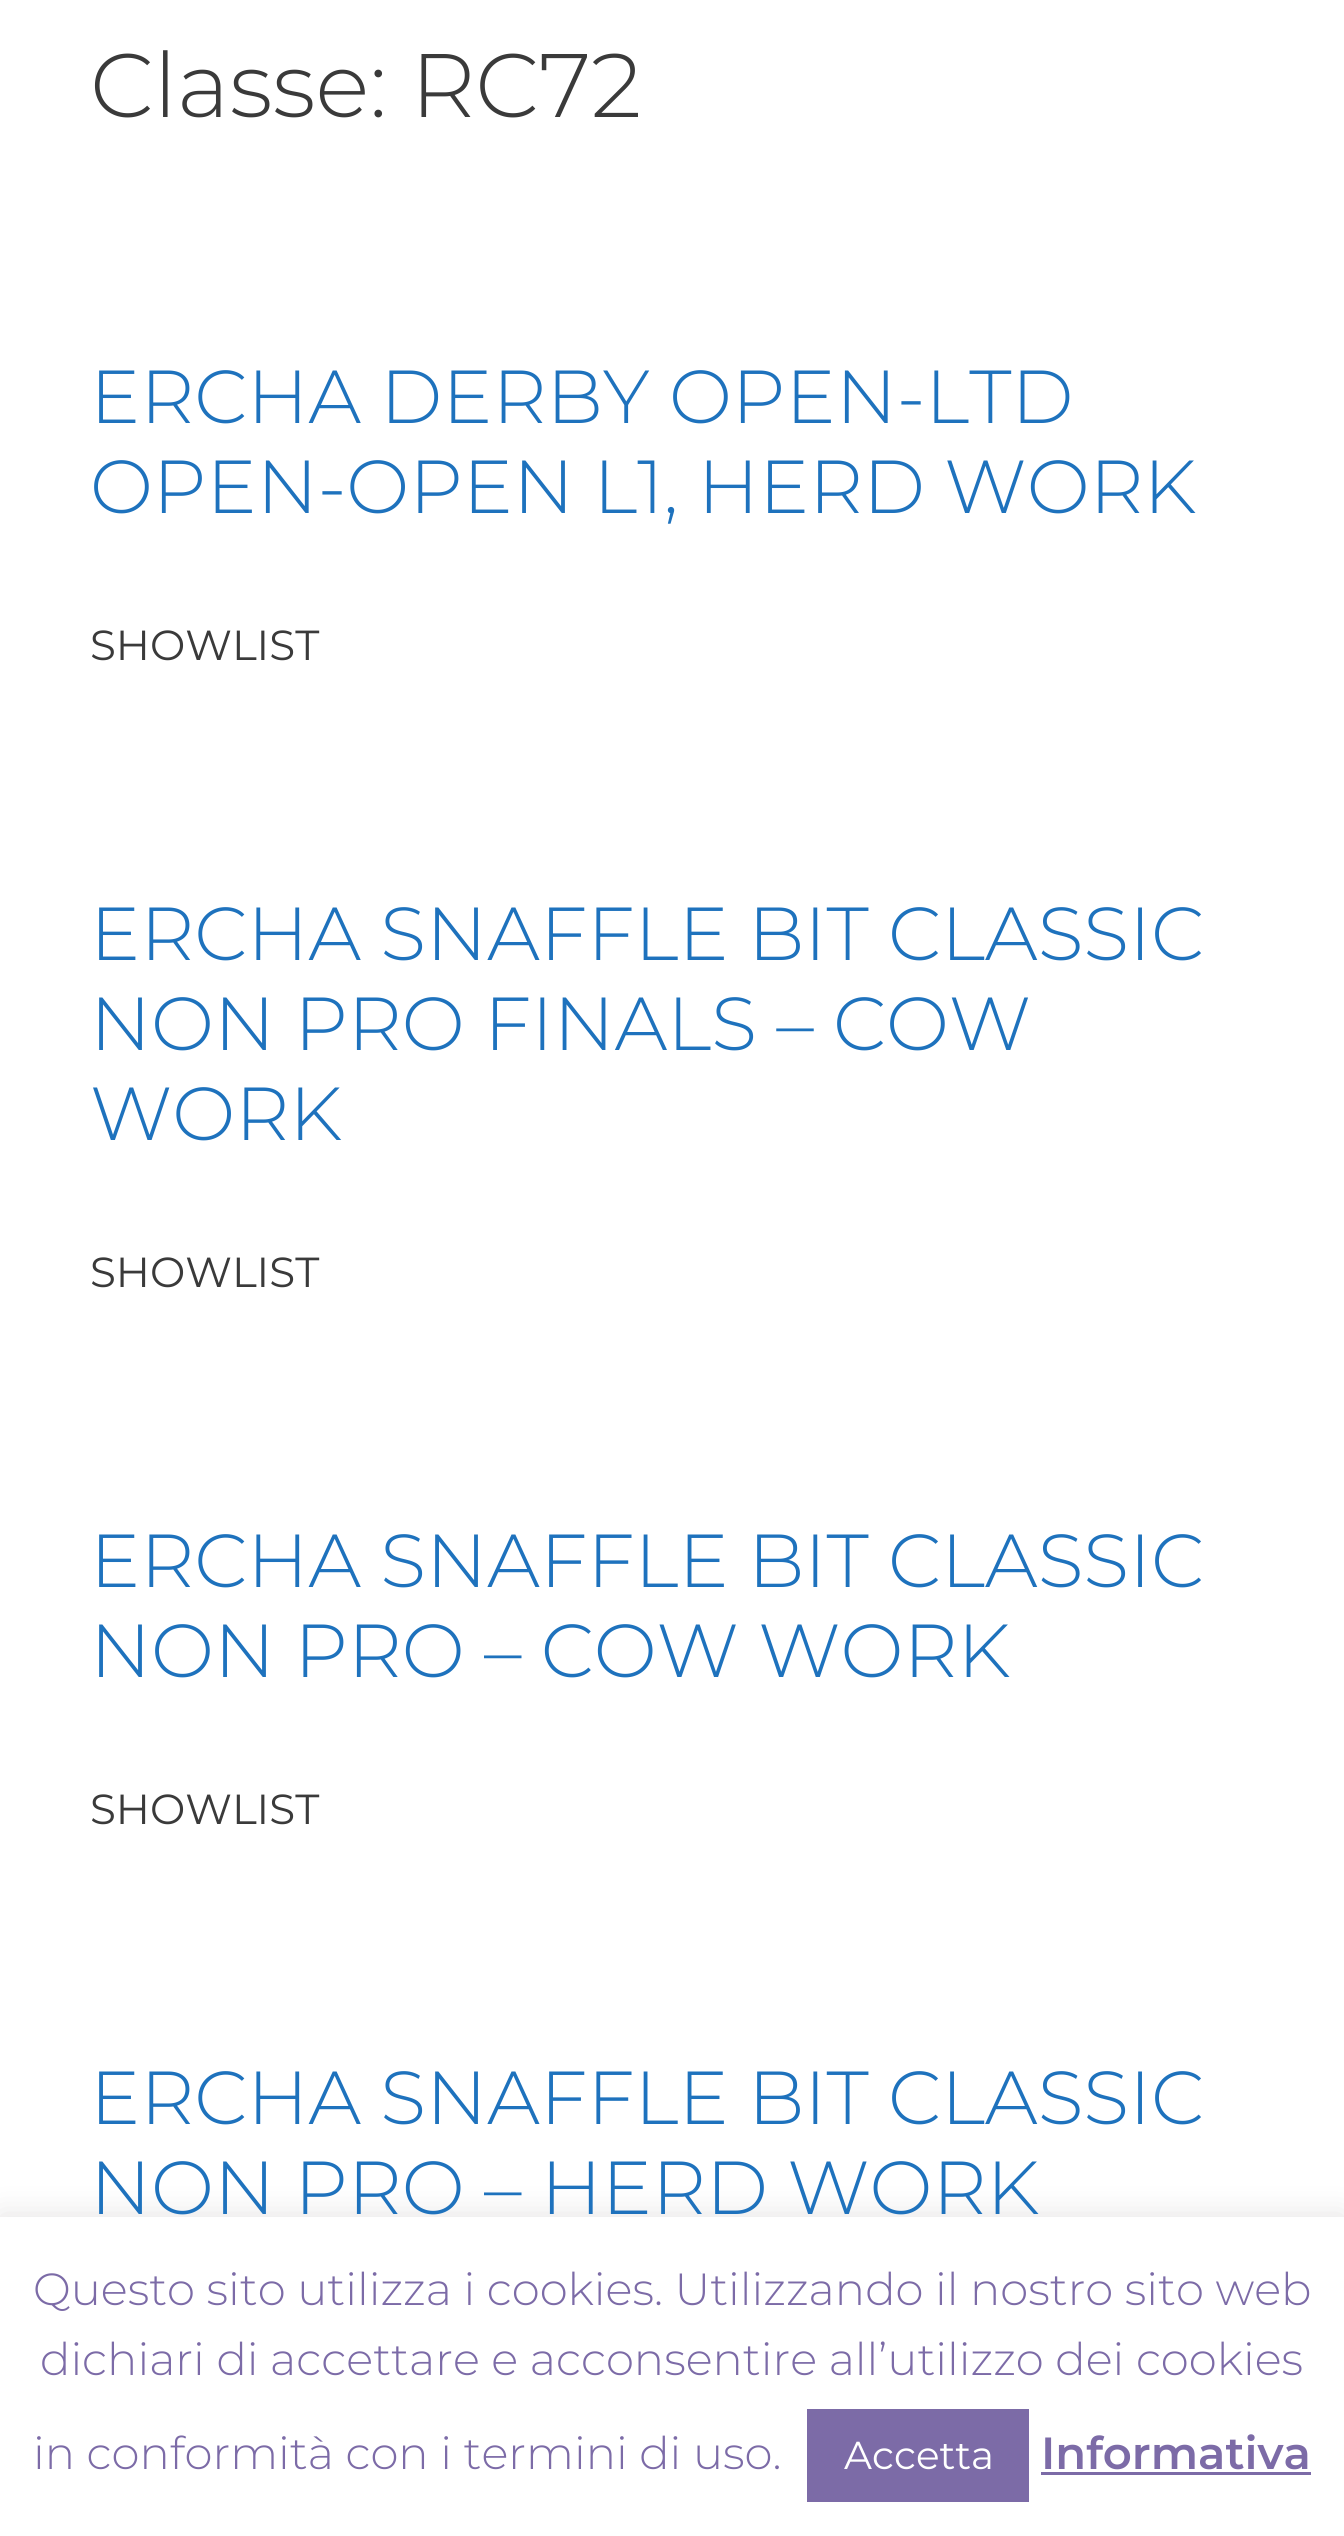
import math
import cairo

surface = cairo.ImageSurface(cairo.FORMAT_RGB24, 1344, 2536)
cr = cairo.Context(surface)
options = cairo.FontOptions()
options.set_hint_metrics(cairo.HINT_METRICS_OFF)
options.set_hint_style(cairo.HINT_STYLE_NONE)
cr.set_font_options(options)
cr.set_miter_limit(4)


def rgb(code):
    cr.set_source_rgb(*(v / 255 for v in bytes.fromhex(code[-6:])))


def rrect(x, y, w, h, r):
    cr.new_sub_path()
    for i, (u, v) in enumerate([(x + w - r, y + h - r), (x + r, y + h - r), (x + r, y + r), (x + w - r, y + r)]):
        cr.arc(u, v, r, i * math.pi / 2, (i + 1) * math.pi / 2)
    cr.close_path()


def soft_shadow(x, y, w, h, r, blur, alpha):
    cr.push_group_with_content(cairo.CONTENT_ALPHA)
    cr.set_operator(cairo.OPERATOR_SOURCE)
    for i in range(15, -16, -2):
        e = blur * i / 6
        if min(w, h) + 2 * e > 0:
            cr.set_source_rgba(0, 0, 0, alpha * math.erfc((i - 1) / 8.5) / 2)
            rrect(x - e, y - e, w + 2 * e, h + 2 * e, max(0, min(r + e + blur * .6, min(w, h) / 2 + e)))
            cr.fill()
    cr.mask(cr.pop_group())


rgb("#ffffff")
cr.paint()
rgb("#acabab")
soft_shadow(0, 2214, 1344, 321, 0, 15, 0.3)
for x, y, w, h, color in [
    (0, 2217, 1344, 319, "#ffffff"),
    (807, 2409, 222, 93, "#7c6ba7"),
    (1041, 2472, 270, 3, "#7c6ba7"),
]:
    rgb(color)
    cr.rectangle(x, y, w, h)
    cr.fill()
cr.select_font_face("Montserrat Light")
cr.set_font_size(90)
rgb("#3a3a3a")
cr.move_to(90, 117)
cr.show_text("Classe: RC72")
cr.set_font_size(75)
rgb("#1e72bd")
cr.move_to(90, 423)
cr.show_text("ERCHA DERBY OPEN-LTD")
cr.move_to(90, 513)
cr.show_text("OPEN-OPEN L1, HERD WORK")
cr.select_font_face("Montserrat")
cr.set_font_size(42)
rgb("#3a3a3a")
cr.move_to(90, 660)
cr.show_text("SHOWLIST")
cr.select_font_face("Montserrat Light")
cr.set_font_size(75)
rgb("#1e72bd")
for x, y, s in [
    (90, 960, "ERCHA SNAFFLE BIT CLASSIC"),
    (90, 1050, "NON PRO FINALS – COW"),
    (90, 1140, "WORK"),
]:
    cr.move_to(x, y)
    cr.show_text(s)
cr.select_font_face("Montserrat")
cr.set_font_size(42)
rgb("#3a3a3a")
cr.move_to(90, 1287)
cr.show_text("SHOWLIST")
cr.select_font_face("Montserrat Light")
cr.set_font_size(75)
rgb("#1e72bd")
cr.move_to(90, 1587)
cr.show_text("ERCHA SNAFFLE BIT CLASSIC")
cr.move_to(90, 1677)
cr.show_text("NON PRO – COW WORK")
cr.select_font_face("Montserrat")
cr.set_font_size(42)
rgb("#3a3a3a")
cr.move_to(90, 1824)
cr.show_text("SHOWLIST")
cr.select_font_face("Montserrat Light")
cr.set_font_size(75)
rgb("#1e72bd")
cr.move_to(90, 2124)
cr.show_text("ERCHA SNAFFLE BIT CLASSIC")
cr.move_to(90, 2214)
cr.show_text("NON PRO – HERD WORK")
cr.set_font_size(45)
rgb("#7c6ba7")
for x, y, s in [
    (33, 2305, "Questo sito utilizza i cookies. Utilizzando il nostro sito web"),
    (40, 2375, "dichiari di accettare e acconsentire all’utilizzo dei cookies"),
    (33, 2469, "in conformità con i termini di uso."),
]:
    cr.move_to(x, y)
    cr.show_text(s)
cr.select_font_face("Montserrat")
cr.set_font_size(39)
rgb("#ffffff")
cr.move_to(844, 2469)
cr.show_text("Accetta")
cr.select_font_face("Montserrat SemiBold")
cr.set_font_size(45)
rgb("#7c6ba7")
cr.move_to(1041, 2469)
cr.show_text("Informativa")
surface.write_to_png("page.png")
